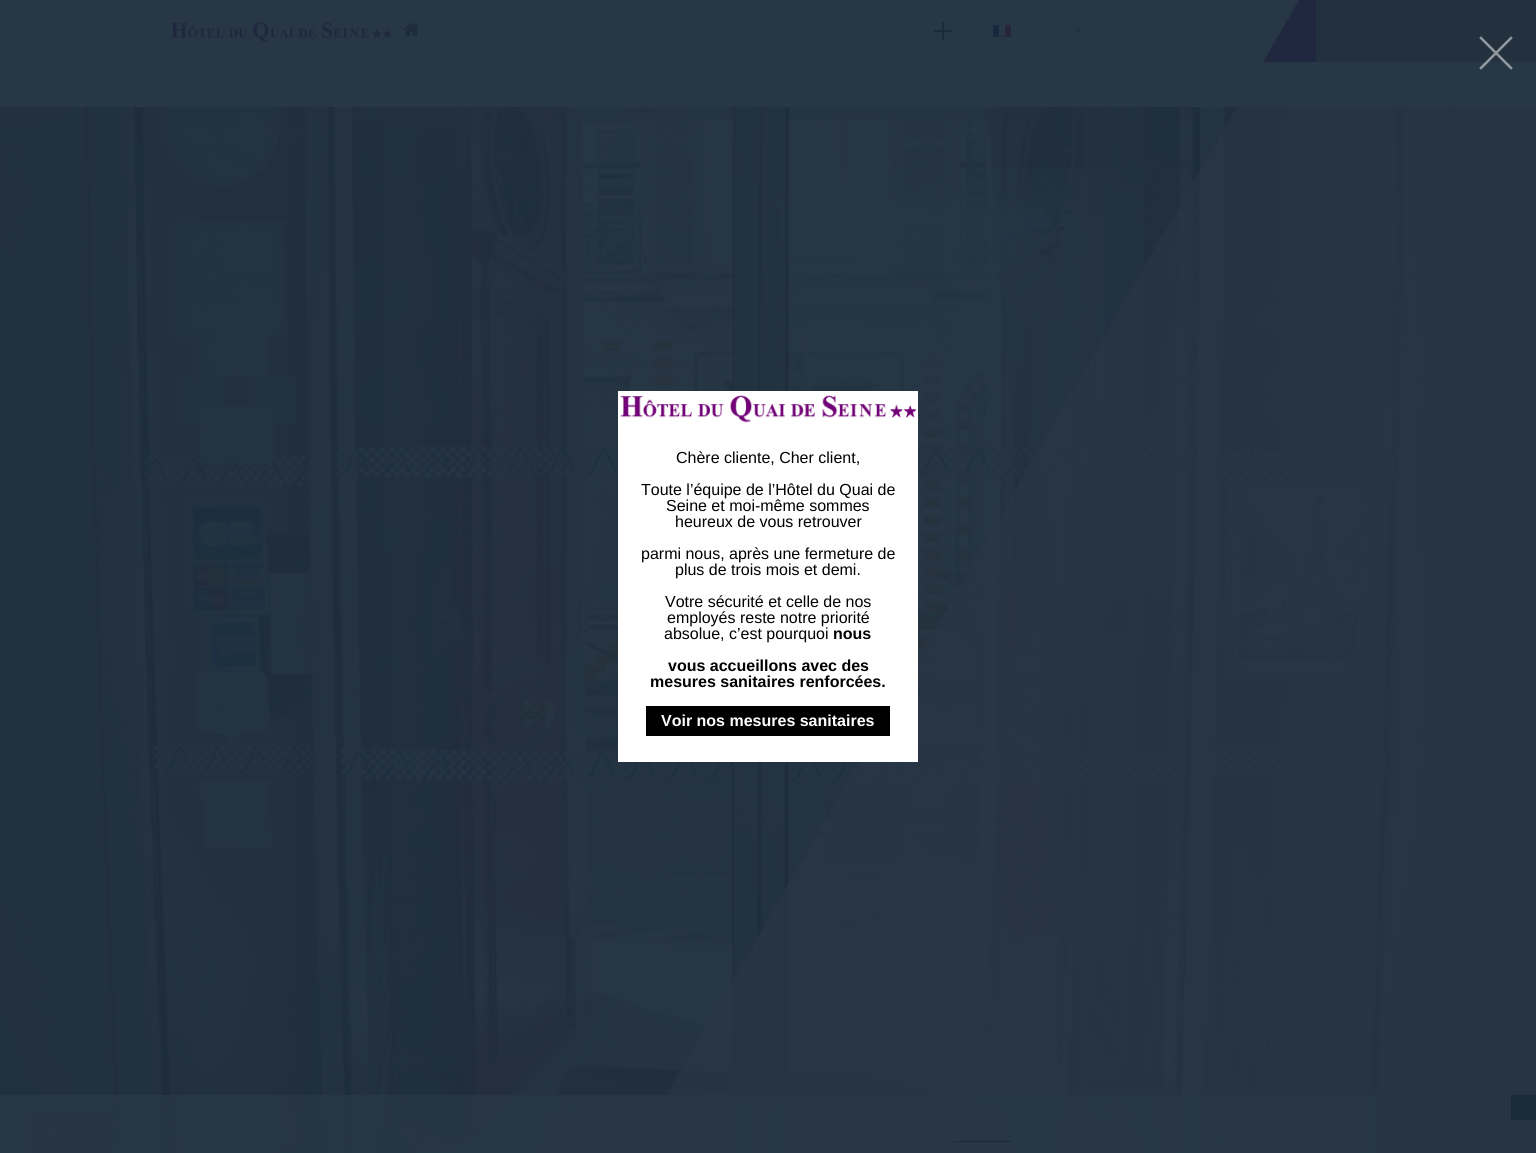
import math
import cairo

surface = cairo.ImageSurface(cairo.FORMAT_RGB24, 1536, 1153)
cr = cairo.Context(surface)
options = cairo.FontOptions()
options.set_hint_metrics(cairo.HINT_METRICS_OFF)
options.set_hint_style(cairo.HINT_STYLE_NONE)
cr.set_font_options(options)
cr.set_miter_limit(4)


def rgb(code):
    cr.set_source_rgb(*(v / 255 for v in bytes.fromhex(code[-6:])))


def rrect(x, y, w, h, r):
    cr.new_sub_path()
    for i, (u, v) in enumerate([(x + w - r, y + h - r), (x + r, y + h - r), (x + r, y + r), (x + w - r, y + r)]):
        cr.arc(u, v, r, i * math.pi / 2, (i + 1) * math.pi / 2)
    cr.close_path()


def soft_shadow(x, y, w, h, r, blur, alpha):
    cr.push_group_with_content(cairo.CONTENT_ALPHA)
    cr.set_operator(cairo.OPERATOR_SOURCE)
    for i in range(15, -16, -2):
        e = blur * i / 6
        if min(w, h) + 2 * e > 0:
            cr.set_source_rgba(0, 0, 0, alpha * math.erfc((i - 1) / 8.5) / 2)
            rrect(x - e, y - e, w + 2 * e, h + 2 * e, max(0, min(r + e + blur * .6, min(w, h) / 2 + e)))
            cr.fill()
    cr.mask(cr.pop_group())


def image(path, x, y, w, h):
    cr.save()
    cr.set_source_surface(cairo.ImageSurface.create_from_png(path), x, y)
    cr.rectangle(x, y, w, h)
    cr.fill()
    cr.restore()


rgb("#ffffff")
cr.paint()
image("img/6.png", 0, 107, 1536, 1046)
cr.set_source_rgba(0.157, 0.216, 0.275, 0.65)
cr.new_path()
cr.move_to(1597, -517)
cr.line_to(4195, 983)
cr.line_to(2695, 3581)
cr.line_to(97, 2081)
cr.close_path()
cr.fill()
rgb("#253443")
soft_shadow(1, 0, 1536, 107, 0, 0.5, 1)
rgb("#283746")
cr.rectangle(0, 0, 1536, 107)
cr.fill()
image("img/1.png", 170, 22, 222, 20)
image("img/2.png", 403, 23, 17, 13)
image("img/3.png", 934, 22, 18, 18)
image("img/4.png", 993, 25, 18, 12)
image("img/5.png", 1074, 27, 8, 5)
rgb("#1f283e")
cr.new_path()
cr.move_to(1299, 0)
cr.line_to(1359, 0)
cr.line_to(1323, 62)
cr.line_to(1263, 62)
cr.close_path()
cr.fill()
rgb("#23303d")
cr.rectangle(1316, 0, 220, 62)
cr.fill()
rgb("#1f283e")
cr.rectangle(30, 1115, 40, 38)
cr.fill()
image("img/7.png", 44, 1126, 12, 19)
cr.rectangle(71, 1115, 40, 38)
cr.fill()
image("img/8.png", 85, 1126, 11, 19)
cr.new_path()
cr.move_to(1481, 38)
cr.line_to(1511, 68)
cr.move_to(1481, 68)
cr.line_to(1511, 38)
cr.set_source_rgba(1, 1, 1, 0.5)
cr.set_line_width(2.5)
cr.set_line_cap(cairo.LINE_CAP_SQUARE)
cr.stroke()
rgb("#ffffff")
cr.rectangle(618, 391, 300, 371)
cr.fill()
image("img/9.png", 620, 395, 297, 28)
rgb("#000000")
cr.rectangle(646, 706, 244, 30)
cr.fill()
cr.set_source_rgba(0.157, 0.216, 0.275, 0.8)
cr.rectangle(0, 1095, 1377, 58)
cr.fill()
rgb("#1b2a39")
cr.rectangle(1511, 1095, 25, 25)
cr.fill()
cr.set_source_rgba(0.094, 0.153, 0.216, 0.8)
cr.rectangle(954, 1141, 57, 1)
cr.fill()
cr.select_font_face("Liberation Sans")
cr.set_font_size(16)
rgb("#000000")
for x, y, s in [
    (676, 463, "Chère cliente, Cher client,"),
    (641, 495, "Toute l’équipe de l’Hôtel du Quai de"),
    (666, 511, "Seine et moi-même sommes"),
    (675, 527, "heureux de vous retrouver"),
    (641, 559, "parmi nous, après une fermeture de"),
    (675, 575, "plus de trois mois et demi."),
    (665, 607, "Votre sécurité et celle de nos"),
    (667, 623, "employés reste notre priorité"),
    (664, 639, "absolue, c’est pourquoi"),
]:
    cr.move_to(x, y)
    cr.show_text(s)
cr.select_font_face("Liberation Sans", cairo.FONT_SLANT_NORMAL, cairo.FONT_WEIGHT_BOLD)
for x, y, s in [
    (833, 639, "nous"),
    (668, 671, "vous accueillons avec des"),
    (650, 687, "mesures sanitaires renforcées."),
]:
    cr.move_to(x, y)
    cr.show_text(s)
rgb("#ffffff")
cr.move_to(661, 726)
cr.show_text("Voir nos mesures sanitaires")
surface.write_to_png("page.png")
